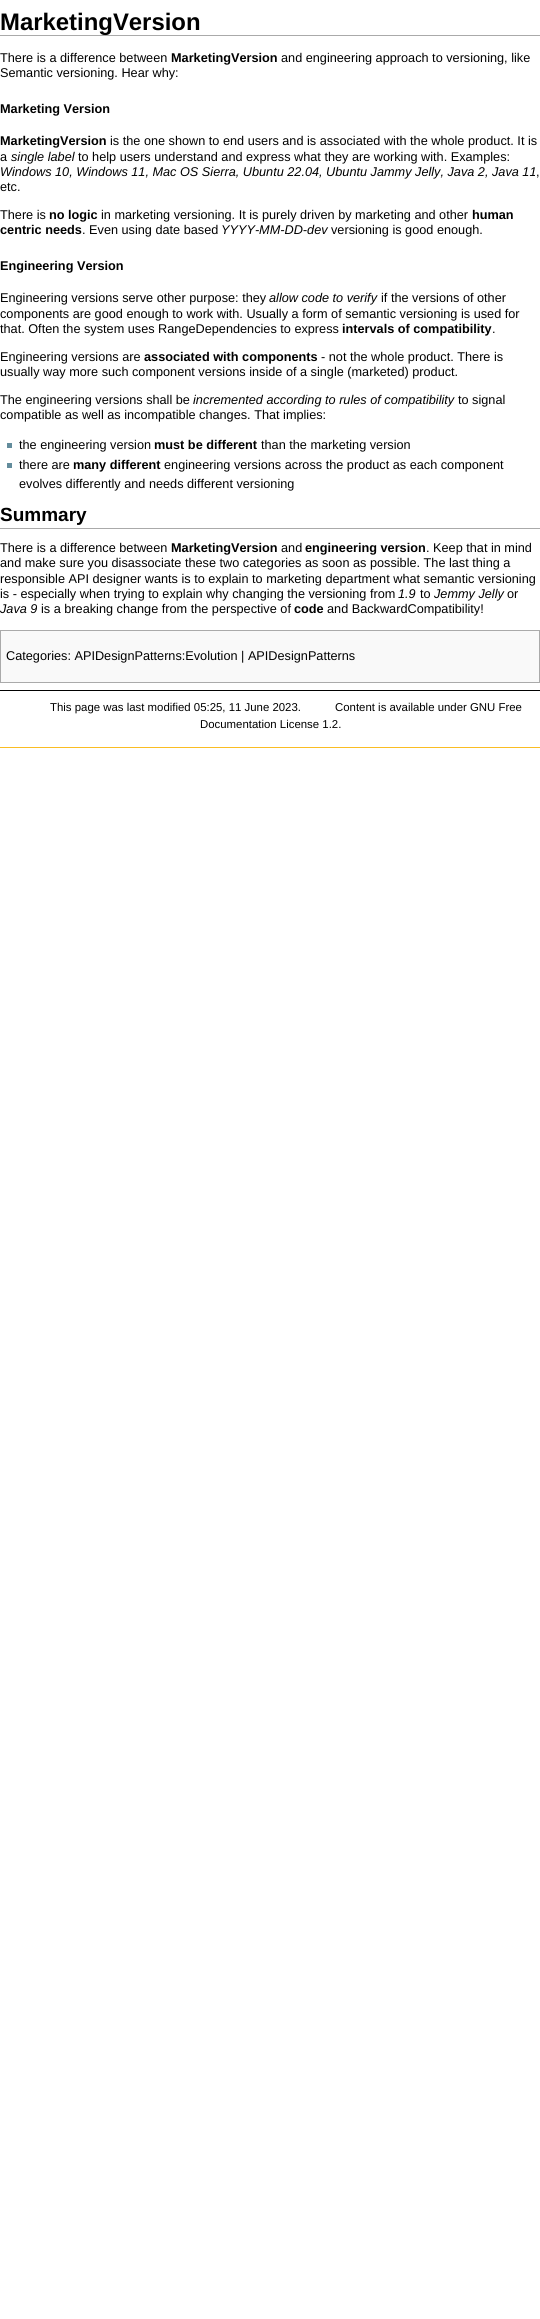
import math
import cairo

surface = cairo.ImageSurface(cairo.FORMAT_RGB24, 540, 2319)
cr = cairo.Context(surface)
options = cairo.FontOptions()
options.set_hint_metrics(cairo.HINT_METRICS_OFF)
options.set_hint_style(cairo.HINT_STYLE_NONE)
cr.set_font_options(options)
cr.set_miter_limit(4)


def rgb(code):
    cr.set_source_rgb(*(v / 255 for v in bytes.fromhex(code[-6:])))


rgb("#ffffff")
cr.paint()
for x, y, w, h, color in [
    (0, 35, 540, 1, "#aaaaaa"),
    (7, 443, 5, 5, "#638c9c"),
    (7, 463, 5, 5, "#638c9c"),
    (0, 528, 540, 1, "#aaaaaa"),
]:
    rgb(color)
    cr.rectangle(x, y, w, h)
    cr.fill()
rgb("#f9f9f9")
cr.rectangle(0.5, 630.5, 539, 52)
cr.fill_preserve()
rgb("#aaaaaa")
cr.set_line_width(1)
cr.stroke()
rgb("#000000")
cr.rectangle(0, 690, 540, 1)
cr.fill()
rgb("#fabd23")
cr.rectangle(0, 747, 540, 1)
cr.fill()
cr.select_font_face("Liberation Sans", cairo.FONT_SLANT_NORMAL, cairo.FONT_WEIGHT_BOLD)
cr.set_font_size(23.9)
rgb("#000000")
cr.move_to(0, 30)
cr.show_text("MarketingVersion")
cr.select_font_face("Liberation Sans")
cr.set_font_size(12.7)
cr.move_to(0, 62)
cr.show_text("There is a difference between")
cr.select_font_face("Liberation Sans", cairo.FONT_SLANT_NORMAL, cairo.FONT_WEIGHT_BOLD)
cr.move_to(171, 62)
cr.show_text("MarketingVersion")
cr.select_font_face("Liberation Sans")
cr.move_to(281, 62)
cr.show_text("and engineering approach to versioning, like")
cr.move_to(0, 77)
cr.show_text("Semantic versioning. Hear why:")
cr.select_font_face("Liberation Sans", cairo.FONT_SLANT_NORMAL, cairo.FONT_WEIGHT_BOLD)
cr.move_to(0, 113)
cr.show_text("Marketing Version")
cr.move_to(0, 145)
cr.show_text("MarketingVersion")
cr.select_font_face("Liberation Sans")
cr.move_to(110, 145)
cr.show_text("is the one shown to end users and is associated with the whole product. It is")
cr.move_to(0, 161)
cr.show_text("a")
cr.select_font_face("Liberation Sans", cairo.FONT_SLANT_ITALIC)
cr.move_to(11, 161)
cr.show_text("single label")
cr.select_font_face("Liberation Sans")
cr.move_to(78, 161)
cr.show_text("to help users understand and express what they are working with. Examples:")
cr.select_font_face("Liberation Sans", cairo.FONT_SLANT_ITALIC)
cr.move_to(0, 176)
cr.show_text("Windows 10, Windows 11, Mac OS Sierra, Ubuntu 22.04, Ubuntu Jammy Jelly, Java 2, Java 11")
cr.select_font_face("Liberation Sans")
for x, y, s in [
    (536, 176, ","),
    (0, 191, "etc."),
    (0, 219, "There is"),
]:
    cr.move_to(x, y)
    cr.show_text(s)
cr.select_font_face("Liberation Sans", cairo.FONT_SLANT_NORMAL, cairo.FONT_WEIGHT_BOLD)
cr.move_to(49, 219)
cr.show_text("no logic")
cr.select_font_face("Liberation Sans")
cr.move_to(101, 219)
cr.show_text("in marketing versioning. It is purely driven by marketing and other")
cr.select_font_face("Liberation Sans", cairo.FONT_SLANT_NORMAL, cairo.FONT_WEIGHT_BOLD)
cr.move_to(472, 219)
cr.show_text("human")
cr.move_to(0, 234)
cr.show_text("centric needs")
cr.select_font_face("Liberation Sans")
cr.move_to(82, 234)
cr.show_text(". Even using date based")
cr.select_font_face("Liberation Sans", cairo.FONT_SLANT_ITALIC)
cr.move_to(221, 234)
cr.show_text("YYYY-MM-DD-dev")
cr.select_font_face("Liberation Sans")
cr.move_to(331, 234)
cr.show_text("versioning is good enough.")
cr.select_font_face("Liberation Sans", cairo.FONT_SLANT_NORMAL, cairo.FONT_WEIGHT_BOLD)
cr.move_to(0, 270)
cr.show_text("Engineering Version")
cr.select_font_face("Liberation Sans")
cr.move_to(0, 302)
cr.show_text("Engineering versions serve other purpose: they")
cr.select_font_face("Liberation Sans", cairo.FONT_SLANT_ITALIC)
cr.move_to(269, 302)
cr.show_text("allow code to verify")
cr.select_font_face("Liberation Sans")
for x, y, s in [
    (381, 302, "if the versions of other"),
    (0, 318, "components are good enough to work with. Usually a form of semantic versioning is used for"),
    (0, 333, "that. Often the system uses RangeDependencies to express"),
]:
    cr.move_to(x, y)
    cr.show_text(s)
cr.select_font_face("Liberation Sans", cairo.FONT_SLANT_NORMAL, cairo.FONT_WEIGHT_BOLD)
cr.move_to(342, 333)
cr.show_text("intervals of compatibility")
cr.select_font_face("Liberation Sans")
cr.move_to(492, 333)
cr.show_text(".")
cr.move_to(0, 361)
cr.show_text("Engineering versions are")
cr.select_font_face("Liberation Sans", cairo.FONT_SLANT_NORMAL, cairo.FONT_WEIGHT_BOLD)
cr.move_to(144, 361)
cr.show_text("associated with components")
cr.select_font_face("Liberation Sans")
for x, y, s in [
    (321, 361, "- not the whole product. There is"),
    (0, 376, "usually way more such component versions inside of a single (marketed) product."),
    (0, 404, "The engineering versions shall be"),
]:
    cr.move_to(x, y)
    cr.show_text(s)
cr.select_font_face("Liberation Sans", cairo.FONT_SLANT_ITALIC)
cr.move_to(193, 404)
cr.show_text("incremented according to rules of compatibility")
cr.select_font_face("Liberation Sans")
for x, y, s in [
    (458, 404, "to signal"),
    (0, 419, "compatible as well as incompatible changes. That implies:"),
    (19, 449, "the engineering version"),
]:
    cr.move_to(x, y)
    cr.show_text(s)
cr.select_font_face("Liberation Sans", cairo.FONT_SLANT_NORMAL, cairo.FONT_WEIGHT_BOLD)
cr.move_to(154, 449)
cr.show_text("must be different")
cr.select_font_face("Liberation Sans")
cr.move_to(261, 449)
cr.show_text("than the marketing version")
cr.move_to(19, 469)
cr.show_text("there are")
cr.select_font_face("Liberation Sans", cairo.FONT_SLANT_NORMAL, cairo.FONT_WEIGHT_BOLD)
cr.move_to(73, 469)
cr.show_text("many different")
cr.select_font_face("Liberation Sans")
cr.move_to(164, 469)
cr.show_text("engineering versions across the product as each component")
cr.move_to(19, 488)
cr.show_text("evolves differently and needs different versioning")
cr.select_font_face("Liberation Sans", cairo.FONT_SLANT_NORMAL, cairo.FONT_WEIGHT_BOLD)
cr.set_font_size(19)
cr.move_to(0, 521)
cr.show_text("Summary")
cr.select_font_face("Liberation Sans")
cr.set_font_size(12.7)
cr.move_to(0, 552)
cr.show_text("There is a difference between")
cr.select_font_face("Liberation Sans", cairo.FONT_SLANT_NORMAL, cairo.FONT_WEIGHT_BOLD)
cr.move_to(171, 552)
cr.show_text("MarketingVersion")
cr.select_font_face("Liberation Sans")
cr.move_to(281, 552)
cr.show_text("and")
cr.select_font_face("Liberation Sans", cairo.FONT_SLANT_NORMAL, cairo.FONT_WEIGHT_BOLD)
cr.move_to(305, 552)
cr.show_text("engineering version")
cr.select_font_face("Liberation Sans")
for x, y, s in [
    (426, 552, ". Keep that in mind"),
    (0, 567, "and make sure you disassociate these two categories as soon as possible. The last thing a"),
    (0, 583, "responsible API designer wants is to explain to marketing department what semantic versioning"),
    (0, 598, "is - especially when trying to explain why changing the versioning from"),
]:
    cr.move_to(x, y)
    cr.show_text(s)
cr.select_font_face("Liberation Sans", cairo.FONT_SLANT_ITALIC)
cr.move_to(398, 598)
cr.show_text("1.9")
cr.select_font_face("Liberation Sans")
cr.move_to(420, 598)
cr.show_text("to")
cr.select_font_face("Liberation Sans", cairo.FONT_SLANT_ITALIC)
cr.move_to(434, 598)
cr.show_text("Jemmy Jelly")
cr.select_font_face("Liberation Sans")
cr.move_to(507, 598)
cr.show_text("or")
cr.select_font_face("Liberation Sans", cairo.FONT_SLANT_ITALIC)
cr.move_to(0, 613)
cr.show_text("Java 9")
cr.select_font_face("Liberation Sans")
cr.move_to(41, 613)
cr.show_text("is a breaking change from the perspective of")
cr.select_font_face("Liberation Sans", cairo.FONT_SLANT_NORMAL, cairo.FONT_WEIGHT_BOLD)
cr.move_to(294, 613)
cr.show_text("code")
cr.select_font_face("Liberation Sans")
cr.move_to(327, 613)
cr.show_text("and BackwardCompatibility!")
cr.move_to(6, 660)
cr.show_text("Categories: APIDesignPatterns:Evolution | APIDesignPatterns")
cr.set_font_size(11.4)
for x, y, s in [
    (50, 711, "This page was last modified 05:25, 11 June 2023."),
    (335, 711, "Content is available under GNU Free"),
    (200, 728, "Documentation License 1.2."),
]:
    cr.move_to(x, y)
    cr.show_text(s)
surface.write_to_png("page.png")
